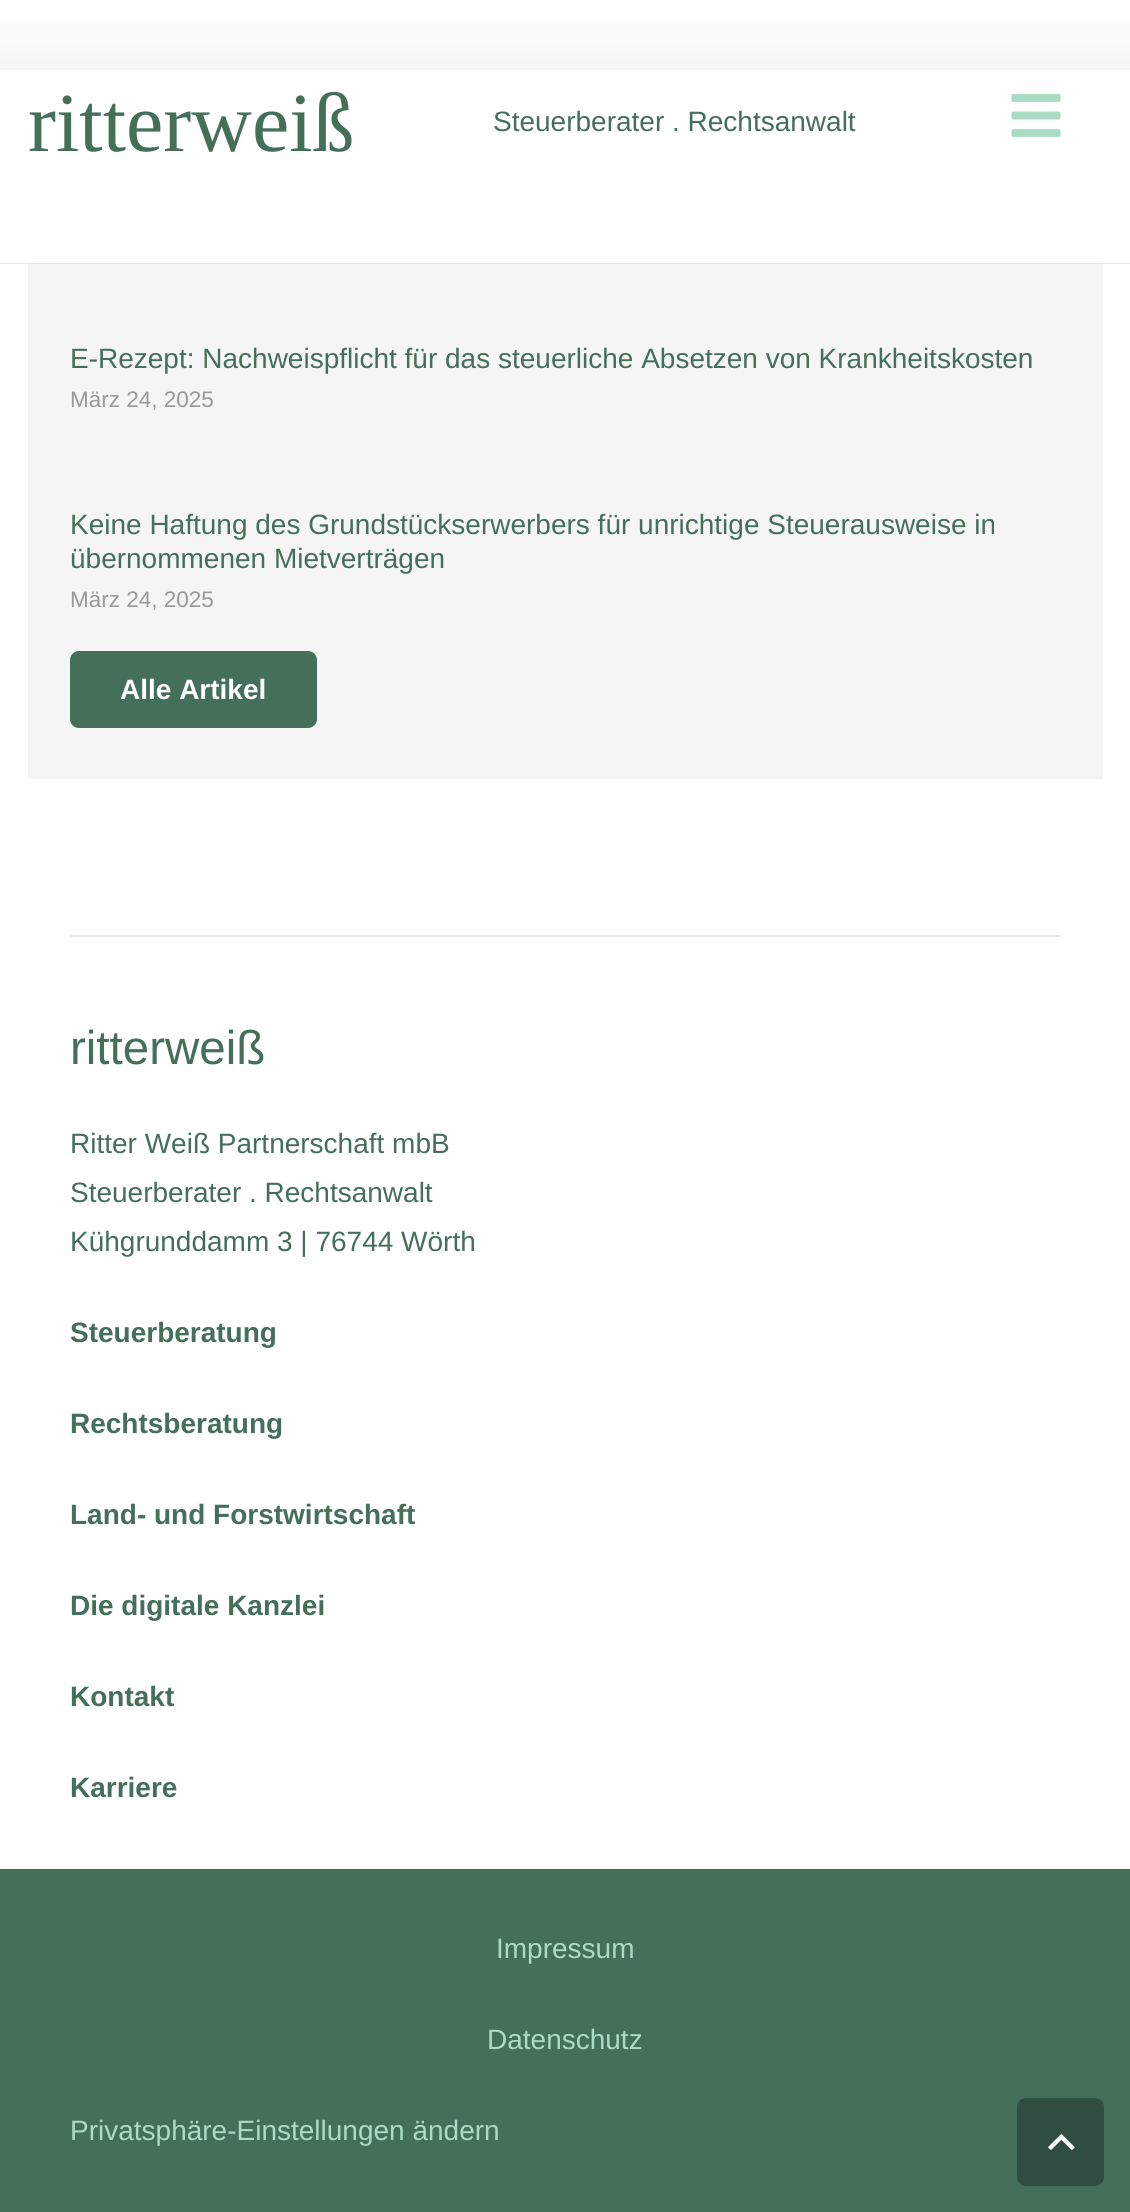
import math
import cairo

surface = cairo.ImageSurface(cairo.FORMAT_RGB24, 1130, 2212)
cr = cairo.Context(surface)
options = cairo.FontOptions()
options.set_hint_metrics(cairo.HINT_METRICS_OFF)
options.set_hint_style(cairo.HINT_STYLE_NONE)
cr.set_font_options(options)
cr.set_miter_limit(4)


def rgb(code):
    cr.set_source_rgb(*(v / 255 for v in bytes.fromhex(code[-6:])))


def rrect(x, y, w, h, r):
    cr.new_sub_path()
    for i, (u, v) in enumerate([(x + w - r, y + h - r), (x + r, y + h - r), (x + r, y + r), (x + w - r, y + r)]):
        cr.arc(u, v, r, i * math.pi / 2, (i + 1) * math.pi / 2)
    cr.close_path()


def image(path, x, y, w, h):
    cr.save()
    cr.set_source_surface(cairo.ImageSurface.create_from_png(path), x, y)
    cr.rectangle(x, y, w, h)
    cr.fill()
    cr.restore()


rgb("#ffffff")
cr.paint()
gradient = cairo.LinearGradient(565, 70, 565, 0)
gradient.add_color_stop_rgba(0, 0.961, 0.961, 0.961, 1)
gradient.add_color_stop_rgba(1, 1, 1, 1, 1)
cr.set_source(gradient)
cr.rectangle(0, 18, 1130, 52)
cr.fill()
image("img/1.png", 1011, 94, 50, 43)
rgb("#f5f5f5")
cr.rectangle(28, 263, 1075, 516)
cr.fill()
cr.set_source_rgba(0, 0, 0, 0.08)
cr.new_path()
cr.move_to(0, 262)
cr.line_to(0, 264)
cr.line_to(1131, 264)
cr.line_to(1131, 177)
cr.line_to(1130, 177)
cr.line_to(1130, 262)
cr.close_path()
cr.fill()
rgb("#ffffff")
cr.rectangle(0, 262, 1130, 1)
cr.fill()
rgb("#44705a")
rrect(70, 651, 247, 77, 9)
cr.fill()
rgb("#e8e8e8")
cr.rectangle(70, 935, 991, 2)
cr.fill()
rgb("#44705a")
cr.rectangle(0, 1869, 1130, 343)
cr.fill()
rgb("#304e3f")
rrect(1017, 2098, 87, 88, 9)
cr.fill()
image("img/2.png", 1048, 2134, 27, 16)
cr.select_font_face("Liberation Serif")
cr.set_font_size(84)
rgb("#44705a")
cr.move_to(28, 151)
cr.show_text("ritterweiß")
cr.select_font_face("Liberation Sans")
cr.set_font_size(28)
cr.move_to(493, 131)
cr.show_text("Steuerberater . Rechtsanwalt")
cr.move_to(70, 368)
cr.show_text("E-Rezept: Nachweispflicht für das steuerliche Absetzen von Krankheitskosten")
cr.set_font_size(22.5)
rgb("#999999")
cr.move_to(70, 407)
cr.show_text("März 24, 2025")
cr.set_font_size(28)
rgb("#44705a")
cr.move_to(70, 534)
cr.show_text("Keine Haftung des Grundstückserwerbers für unrichtige Steuerausweise in")
cr.move_to(70, 568)
cr.show_text("übernommenen Mietverträgen")
cr.set_font_size(22.5)
rgb("#999999")
cr.move_to(70, 607)
cr.show_text("März 24, 2025")
cr.select_font_face("Liberation Sans", cairo.FONT_SLANT_NORMAL, cairo.FONT_WEIGHT_BOLD)
cr.set_font_size(28)
rgb("#ffffff")
cr.move_to(120, 699)
cr.show_text("Alle Artikel")
cr.select_font_face("Liberation Sans")
cr.set_font_size(47.5)
rgb("#44705a")
cr.move_to(70, 1064)
cr.show_text("ritterweiß")
cr.set_font_size(28)
for x, y, s in [
    (70, 1153, "Ritter Weiß Partnerschaft mbB"),
    (70, 1202, "Steuerberater . Rechtsanwalt"),
    (70, 1251, "Kühgrunddamm 3 | 76744 Wörth"),
]:
    cr.move_to(x, y)
    cr.show_text(s)
cr.select_font_face("Liberation Sans", cairo.FONT_SLANT_NORMAL, cairo.FONT_WEIGHT_BOLD)
for x, y, s in [
    (70, 1342, "Steuerberatung"),
    (70, 1433, "Rechtsberatung"),
    (70, 1524, "Land- und Forstwirtschaft"),
    (70, 1615, "Die digitale Kanzlei"),
    (70, 1706, "Kontakt"),
    (70, 1797, "Karriere"),
]:
    cr.move_to(x, y)
    cr.show_text(s)
cr.select_font_face("Liberation Sans")
rgb("#a9dcc3")
for x, y, s in [
    (496, 1958, "Impressum"),
    (487, 2049, "Datenschutz"),
    (70, 2140, "Privatsphäre-Einstellungen ändern"),
]:
    cr.move_to(x, y)
    cr.show_text(s)
surface.write_to_png("page.png")
